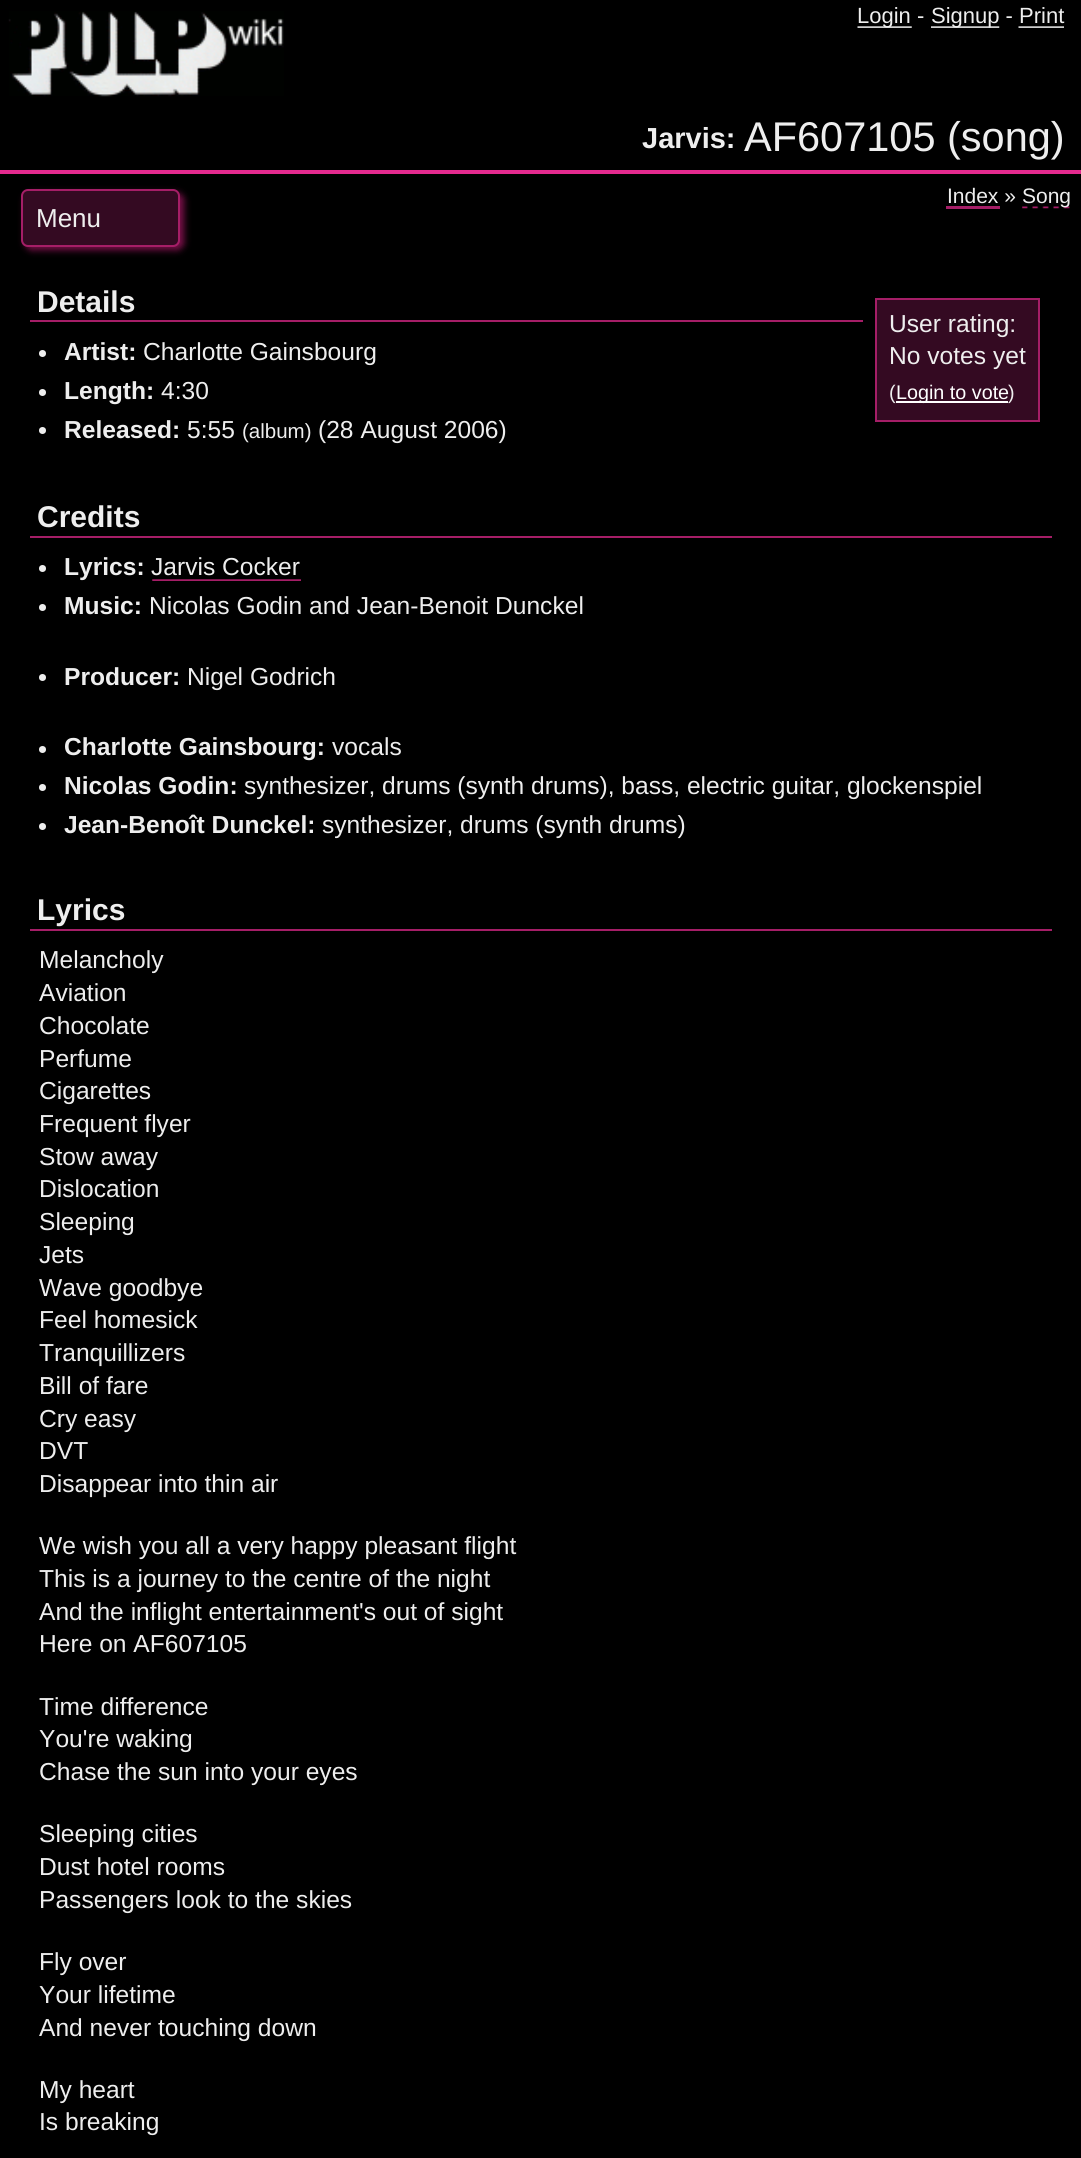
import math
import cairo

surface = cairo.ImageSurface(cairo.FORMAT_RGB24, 1081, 2158)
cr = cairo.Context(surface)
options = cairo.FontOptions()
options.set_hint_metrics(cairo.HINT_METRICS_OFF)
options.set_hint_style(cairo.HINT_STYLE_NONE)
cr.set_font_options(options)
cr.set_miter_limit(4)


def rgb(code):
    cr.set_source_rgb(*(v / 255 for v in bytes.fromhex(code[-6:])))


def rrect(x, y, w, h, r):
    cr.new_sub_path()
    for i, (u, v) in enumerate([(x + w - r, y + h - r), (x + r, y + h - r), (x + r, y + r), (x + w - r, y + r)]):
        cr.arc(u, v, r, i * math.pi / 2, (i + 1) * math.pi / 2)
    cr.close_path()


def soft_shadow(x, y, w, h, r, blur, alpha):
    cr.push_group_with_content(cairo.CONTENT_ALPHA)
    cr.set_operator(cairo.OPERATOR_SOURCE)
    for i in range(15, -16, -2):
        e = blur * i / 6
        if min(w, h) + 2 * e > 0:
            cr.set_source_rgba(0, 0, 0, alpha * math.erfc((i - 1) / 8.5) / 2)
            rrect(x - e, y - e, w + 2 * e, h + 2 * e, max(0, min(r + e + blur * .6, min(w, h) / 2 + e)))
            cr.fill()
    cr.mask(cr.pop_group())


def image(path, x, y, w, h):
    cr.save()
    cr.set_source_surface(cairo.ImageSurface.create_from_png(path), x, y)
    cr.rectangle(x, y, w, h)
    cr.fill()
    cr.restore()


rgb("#000000")
cr.paint()
rgb("#e52a8f")
cr.rectangle(0, 170, 1081, 4)
cr.fill()
image("img/1.png", 8, 11, 276, 86)
image("img/2.png", 857, 26, 55, 2)
image("img/3.png", 931, 26, 69, 2)
rgb("#a51e67")
cr.rectangle(946, 206, 54, 3)
cr.fill()
image("img/5.png", 1022, 206, 48, 3)
rgb("#7b104a")
soft_shadow(25, 193, 159, 57, 7, 3.5, 1)
rgb("#340a22")
rrect(22, 190, 157, 56, 6)
cr.fill_preserve()
rgb("#a51e67")
cr.stroke()
cr.rectangle(30, 320, 833, 2)
cr.fill()
rgb("#eeeeee")
cr.arc(42.5, 353.5, 3.5, 0, 2 * math.pi)
cr.fill()
cr.arc(42.5, 392.5, 3.5, 0, 2 * math.pi)
cr.fill()
cr.arc(42.5, 430.5, 3.5, 0, 2 * math.pi)
cr.fill()
rgb("#340a22")
cr.rectangle(876, 299, 163, 122)
cr.fill_preserve()
rgb("#a51e67")
cr.stroke()
rgb("#ffffff")
cr.rectangle(896, 401, 112, 2)
cr.fill()
rgb("#a51e67")
cr.rectangle(30, 536, 1022, 2)
cr.fill()
rgb("#eeeeee")
cr.arc(42.5, 568.5, 3.5, 0, 2 * math.pi)
cr.fill()
image("img/6.png", 152, 579, 149, 2)
cr.arc(42.5, 607.5, 3.5, 0, 2 * math.pi)
cr.fill()
cr.arc(42.5, 677.5, 3.5, 0, 2 * math.pi)
cr.fill()
cr.arc(42.5, 749.5, 3.5, 0, 2 * math.pi)
cr.fill()
cr.arc(42.5, 787.5, 3.5, 0, 2 * math.pi)
cr.fill()
cr.arc(42.5, 826.5, 3.5, 0, 2 * math.pi)
cr.fill()
rgb("#a51e67")
cr.rectangle(30, 929, 1022, 2)
cr.fill()
cr.select_font_face("Liberation Sans")
cr.set_font_size(22)
rgb("#eeeeee")
cr.move_to(857, 23)
cr.show_text("Login -")
cr.move_to(931, 23)
cr.show_text("Signup - Print")
image("img/4.png", 1018, 26, 46, 2)
cr.select_font_face("Liberation Sans", cairo.FONT_SLANT_NORMAL, cairo.FONT_WEIGHT_BOLD)
cr.set_font_size(29)
cr.move_to(642, 148)
cr.show_text("Jarvis:")
cr.select_font_face("Liberation Sans")
cr.set_font_size(41.5)
cr.move_to(744, 151)
cr.show_text("AF607105 (song)")
cr.set_font_size(21)
cr.move_to(947, 203)
cr.show_text("Index »")
cr.move_to(1022, 203)
cr.show_text("Song")
cr.set_font_size(26)
cr.move_to(36, 227)
cr.show_text("Menu")
cr.select_font_face("Liberation Sans", cairo.FONT_SLANT_NORMAL, cairo.FONT_WEIGHT_BOLD)
cr.set_font_size(30)
cr.move_to(37, 312)
cr.show_text("Details")
cr.set_font_size(24.6)
cr.move_to(64, 360)
cr.show_text("Artist:")
cr.select_font_face("Liberation Sans")
cr.move_to(143, 360)
cr.show_text("Charlotte Gainsbourg")
cr.select_font_face("Liberation Sans", cairo.FONT_SLANT_NORMAL, cairo.FONT_WEIGHT_BOLD)
cr.move_to(64, 399)
cr.show_text("Length:")
cr.select_font_face("Liberation Sans")
cr.move_to(161, 399)
cr.show_text("4:30")
cr.select_font_face("Liberation Sans", cairo.FONT_SLANT_NORMAL, cairo.FONT_WEIGHT_BOLD)
cr.move_to(64, 438)
cr.show_text("Released:")
cr.select_font_face("Liberation Sans")
cr.move_to(187, 438)
cr.show_text("5:55")
cr.set_font_size(20.5)
cr.move_to(242, 438)
cr.show_text("(album)")
cr.set_font_size(24.6)
for x, y, s in [
    (318, 438, "(28 August 2006)"),
    (889, 332, "User rating:"),
    (889, 364, "No votes yet"),
]:
    cr.move_to(x, y)
    cr.show_text(s)
cr.set_font_size(19.75)
cr.move_to(889, 399)
cr.show_text("(")
rgb("#ffffff")
cr.move_to(896, 399)
cr.show_text("Login to vote")
rgb("#eeeeee")
cr.move_to(1008, 399)
cr.show_text(")")
cr.select_font_face("Liberation Sans", cairo.FONT_SLANT_NORMAL, cairo.FONT_WEIGHT_BOLD)
cr.set_font_size(30)
cr.move_to(37, 527)
cr.show_text("Credits")
cr.set_font_size(24.6)
cr.move_to(64, 575)
cr.show_text("Lyrics:")
cr.select_font_face("Liberation Sans")
cr.move_to(151, 575)
cr.show_text("Jarvis Cocker")
cr.select_font_face("Liberation Sans", cairo.FONT_SLANT_NORMAL, cairo.FONT_WEIGHT_BOLD)
cr.move_to(64, 614)
cr.show_text("Music:")
cr.select_font_face("Liberation Sans")
cr.move_to(149, 614)
cr.show_text("Nicolas Godin and Jean-Benoit Dunckel")
cr.select_font_face("Liberation Sans", cairo.FONT_SLANT_NORMAL, cairo.FONT_WEIGHT_BOLD)
cr.move_to(64, 685)
cr.show_text("Producer:")
cr.select_font_face("Liberation Sans")
cr.move_to(187, 685)
cr.show_text("Nigel Godrich")
cr.select_font_face("Liberation Sans", cairo.FONT_SLANT_NORMAL, cairo.FONT_WEIGHT_BOLD)
cr.move_to(64, 755)
cr.show_text("Charlotte Gainsbourg:")
cr.select_font_face("Liberation Sans")
cr.move_to(332, 755)
cr.show_text("vocals")
cr.select_font_face("Liberation Sans", cairo.FONT_SLANT_NORMAL, cairo.FONT_WEIGHT_BOLD)
cr.move_to(64, 794)
cr.show_text("Nicolas Godin:")
cr.select_font_face("Liberation Sans")
cr.move_to(244, 794)
cr.show_text("synthesizer, drums (synth drums), bass, electric guitar, glockenspiel")
cr.select_font_face("Liberation Sans", cairo.FONT_SLANT_NORMAL, cairo.FONT_WEIGHT_BOLD)
cr.move_to(64, 833)
cr.show_text("Jean-Benoît Dunckel:")
cr.select_font_face("Liberation Sans")
cr.move_to(322, 833)
cr.show_text("synthesizer, drums (synth drums)")
cr.select_font_face("Liberation Sans", cairo.FONT_SLANT_NORMAL, cairo.FONT_WEIGHT_BOLD)
cr.set_font_size(30)
cr.move_to(37, 920)
cr.show_text("Lyrics")
cr.select_font_face("Liberation Sans")
cr.set_font_size(24.6)
for x, y, s in [
    (39, 968, "Melancholy"),
    (39, 1001, "Aviation"),
    (39, 1034, "Chocolate"),
    (39, 1067, "Perfume"),
    (39, 1099, "Cigarettes"),
    (39, 1132, "Frequent flyer"),
    (39, 1165, "Stow away"),
    (39, 1197, "Dislocation"),
    (39, 1230, "Sleeping"),
    (39, 1263, "Jets"),
    (39, 1296, "Wave goodbye"),
    (39, 1328, "Feel homesick"),
    (39, 1361, "Tranquillizers"),
    (39, 1394, "Bill of fare"),
    (39, 1427, "Cry easy"),
    (39, 1459, "DVT"),
    (39, 1492, "Disappear into thin air"),
    (39, 1554, "We wish you all a very happy pleasant flight"),
    (39, 1587, "This is a journey to the centre of the night"),
    (39, 1620, "And the inflight entertainment's out of sight"),
    (39, 1652, "Here on AF607105"),
    (39, 1715, "Time difference"),
    (39, 1747, "You're waking"),
    (39, 1780, "Chase the sun into your eyes"),
    (39, 1842, "Sleeping cities"),
    (39, 1875, "Dust hotel rooms"),
    (39, 1908, "Passengers look to the skies"),
    (39, 1970, "Fly over"),
    (39, 2003, "Your lifetime"),
    (39, 2036, "And never touching down"),
    (39, 2098, "My heart"),
    (39, 2130, "Is breaking"),
]:
    cr.move_to(x, y)
    cr.show_text(s)
surface.write_to_png("page.png")
